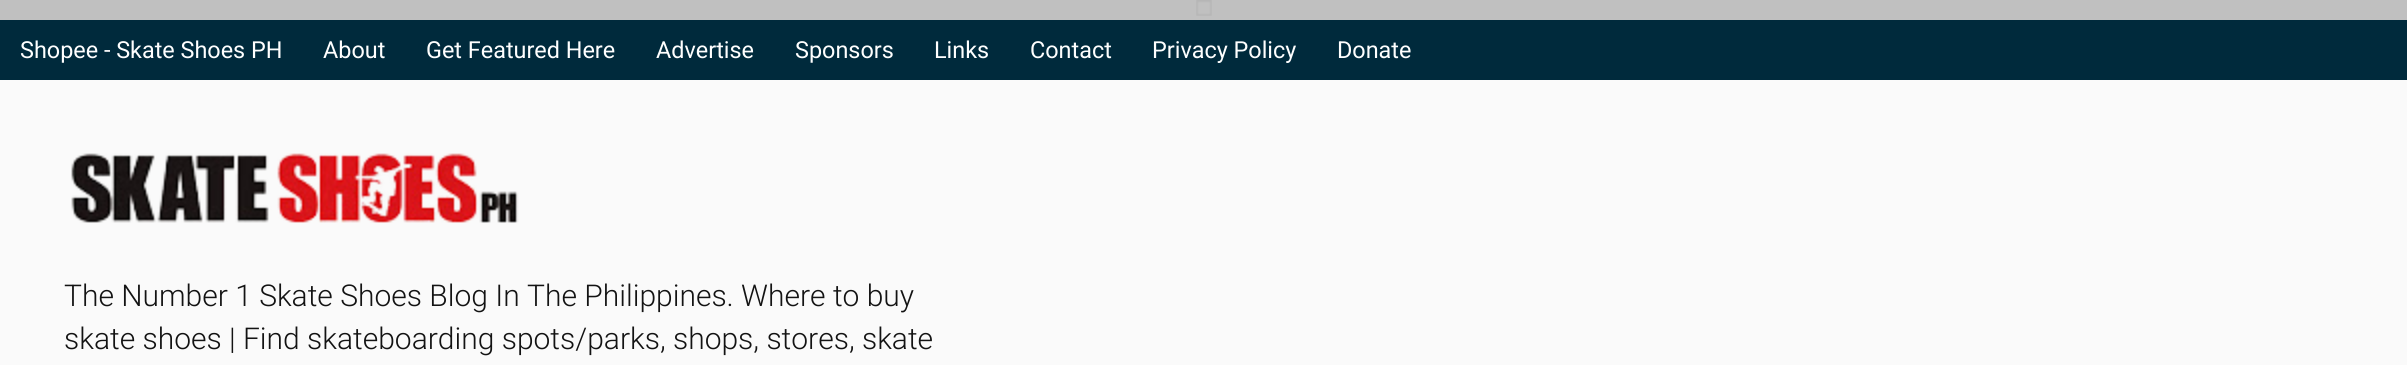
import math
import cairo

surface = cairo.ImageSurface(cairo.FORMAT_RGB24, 2407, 365)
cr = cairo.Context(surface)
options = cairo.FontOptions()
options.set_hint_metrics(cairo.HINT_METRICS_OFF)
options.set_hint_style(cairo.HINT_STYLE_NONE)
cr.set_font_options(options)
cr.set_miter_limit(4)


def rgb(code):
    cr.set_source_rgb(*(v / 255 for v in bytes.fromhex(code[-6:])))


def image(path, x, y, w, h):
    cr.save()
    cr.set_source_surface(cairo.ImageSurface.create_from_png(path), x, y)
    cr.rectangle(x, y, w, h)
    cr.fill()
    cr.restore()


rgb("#c0c0c0")
cr.paint()
image("img/1.png", 1196, 0, 16, 16)
rgb("#002a3c")
cr.rectangle(0, 20, 2407, 60)
cr.fill()
rgb("#fafafa")
cr.rectangle(0, 80, 2407, 285)
cr.fill()
image("img/2.png", 71, 153, 448, 70)
cr.select_font_face("Roboto")
cr.set_font_size(23.4)
rgb("#ffffff")
for x, y, s in [
    (20, 58, "Shopee - Skate Shoes PH"),
    (323, 58, "About"),
    (426, 58, "Get Featured Here"),
    (656, 58, "Advertise"),
    (795, 58, "Sponsors"),
    (934, 58, "Links"),
    (1030, 58, "Contact"),
    (1152, 58, "Privacy Policy"),
    (1337, 58, "Donate"),
]:
    cr.move_to(x, y)
    cr.show_text(s)
cr.select_font_face("Roboto Light")
cr.set_font_size(30)
rgb("#131313")
cr.move_to(64, 306)
cr.show_text("The Number 1 Skate Shoes Blog In The Philippines. Where to buy")
cr.move_to(64, 349)
cr.show_text("skate shoes | Find skateboarding spots/parks, shops, stores, skate")
surface.write_to_png("page.png")
